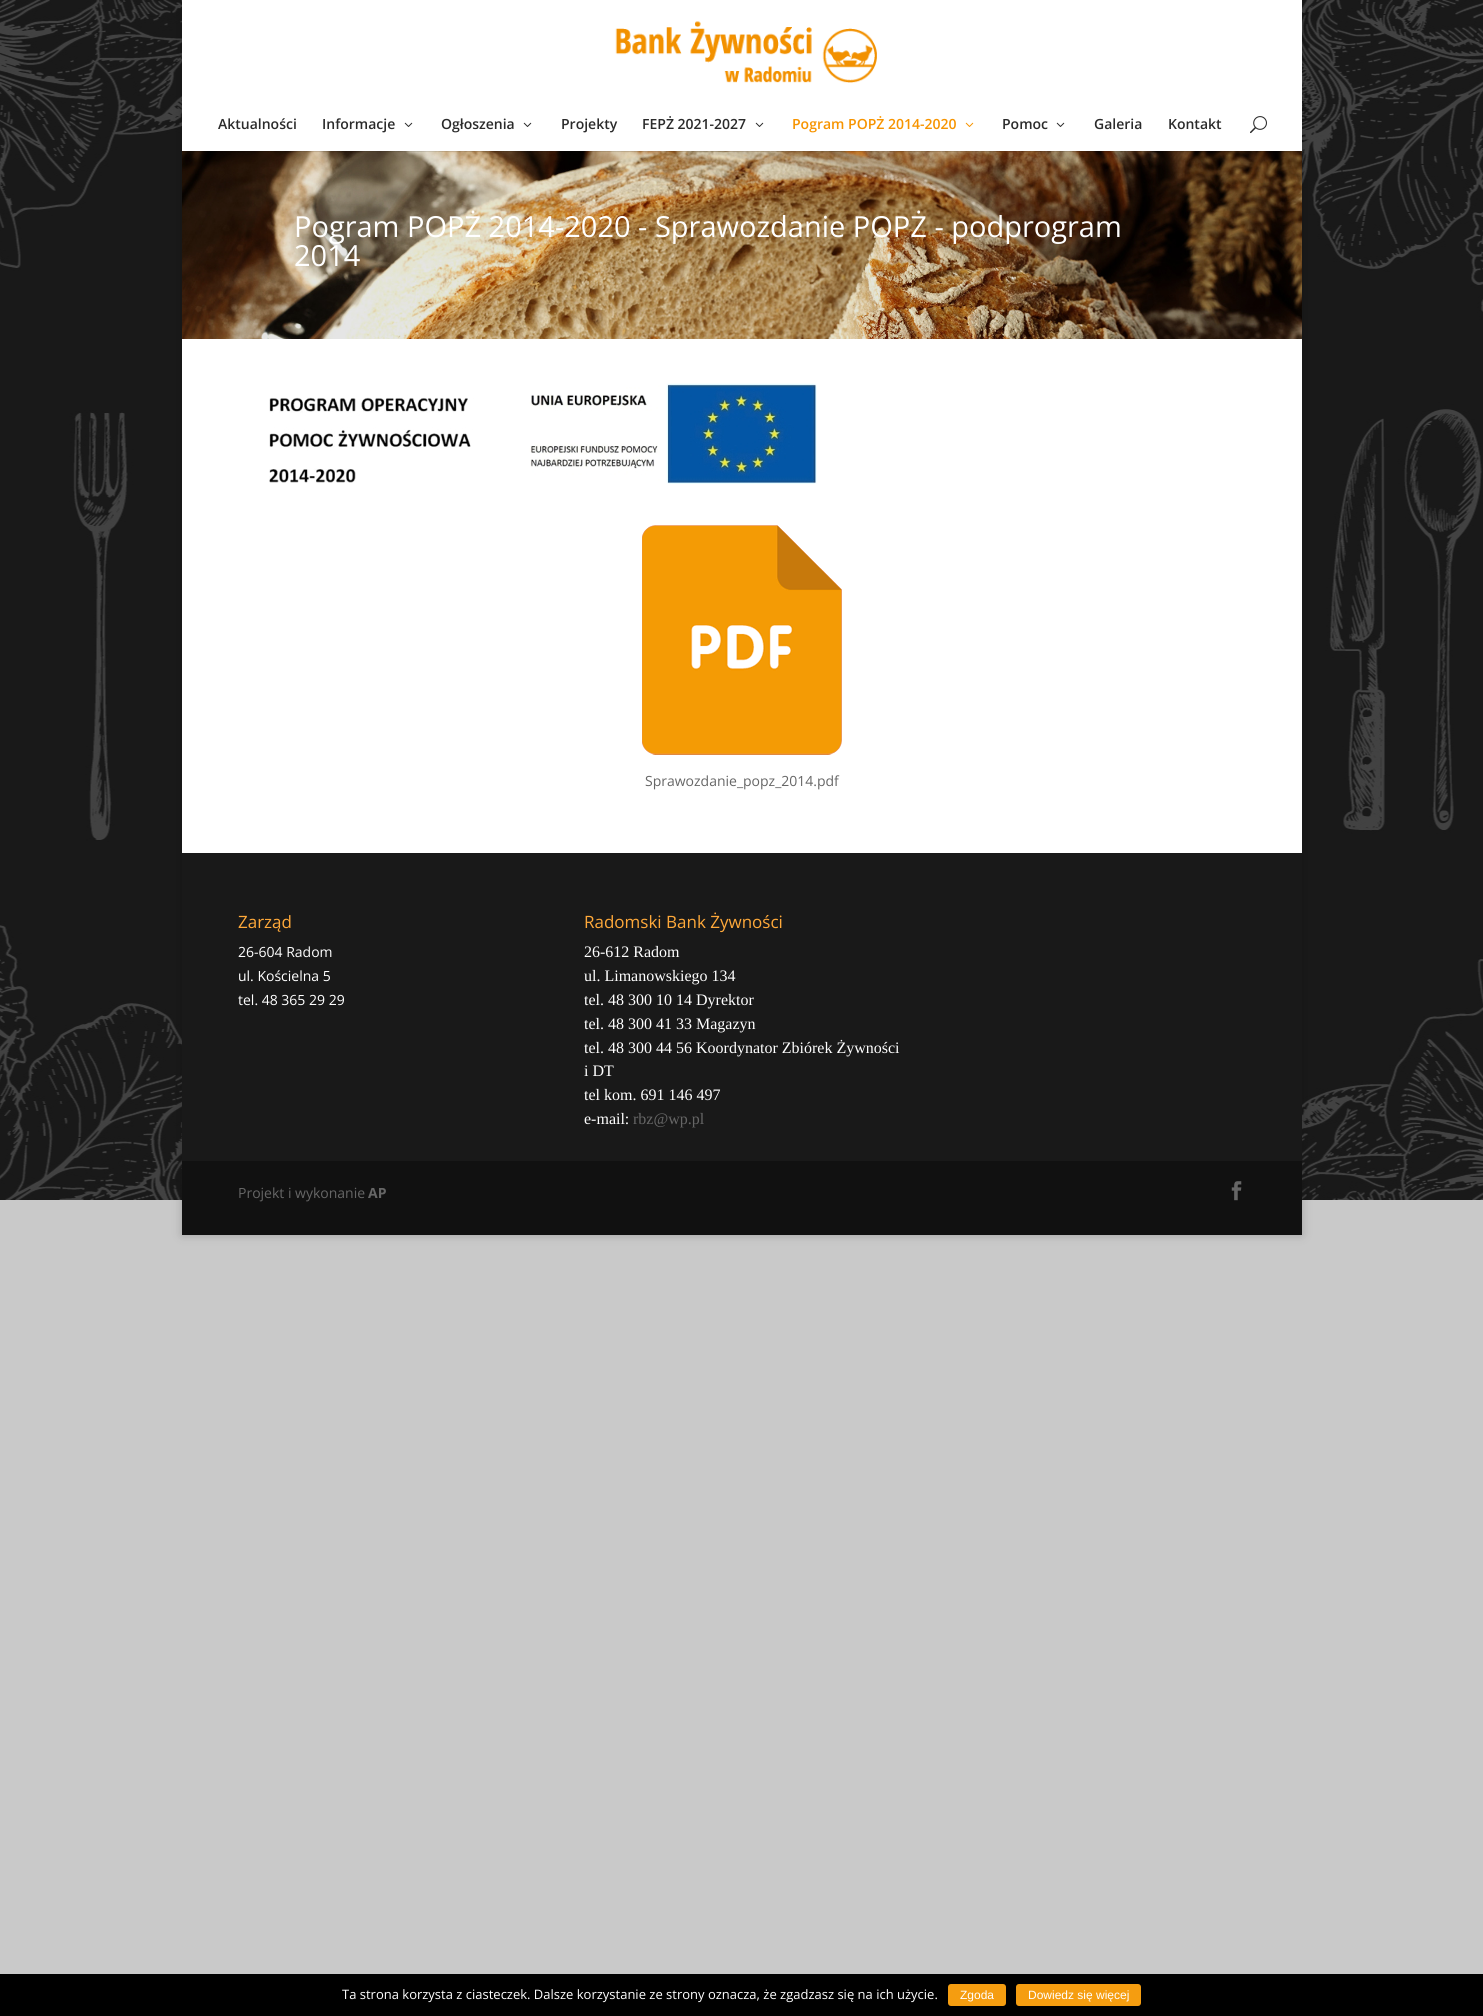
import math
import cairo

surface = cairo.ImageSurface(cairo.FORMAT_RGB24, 1483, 2016)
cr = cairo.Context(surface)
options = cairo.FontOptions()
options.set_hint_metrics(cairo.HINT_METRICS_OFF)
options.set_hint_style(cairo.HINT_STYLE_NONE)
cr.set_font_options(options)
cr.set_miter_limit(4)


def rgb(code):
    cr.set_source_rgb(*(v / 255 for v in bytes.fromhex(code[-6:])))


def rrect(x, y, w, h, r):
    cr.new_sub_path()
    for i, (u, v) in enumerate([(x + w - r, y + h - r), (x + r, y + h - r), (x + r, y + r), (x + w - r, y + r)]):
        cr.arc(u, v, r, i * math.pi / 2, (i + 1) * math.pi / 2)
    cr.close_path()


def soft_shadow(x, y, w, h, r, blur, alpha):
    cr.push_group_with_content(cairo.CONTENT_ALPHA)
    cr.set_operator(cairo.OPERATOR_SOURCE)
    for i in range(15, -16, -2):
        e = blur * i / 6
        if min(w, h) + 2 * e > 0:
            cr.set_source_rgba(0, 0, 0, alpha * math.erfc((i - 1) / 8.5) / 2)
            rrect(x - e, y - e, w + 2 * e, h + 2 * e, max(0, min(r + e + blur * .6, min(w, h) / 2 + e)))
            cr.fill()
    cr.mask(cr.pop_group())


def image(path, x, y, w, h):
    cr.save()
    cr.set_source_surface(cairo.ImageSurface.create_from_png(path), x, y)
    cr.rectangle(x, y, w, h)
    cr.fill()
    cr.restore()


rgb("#c9c9c9")
cr.paint()
image("img/1.png", 0, 0, 1483, 1200)
rgb("#000000")
soft_shadow(182, 0, 1120, 1235, 0, 5, 0.2)
image("img/6.png", 182, 151, 1120, 188)
cr.set_source_rgba(0, 0, 0, 0.1)
cr.rectangle(182, 151, 1120, 1)
cr.fill()
rgb("#ffffff")
cr.rectangle(182, 0, 1120, 151)
cr.fill()
image("img/2.png", 615, 21, 262, 62)
image("img/3.png", 404, 122, 9, 5)
image("img/3.png", 523, 122, 9, 5)
image("img/3.png", 755, 122, 9, 5)
image("img/4.png", 965, 122, 9, 5)
image("img/3.png", 1056, 122, 9, 5)
image("img/5.png", 1250, 116, 17, 18)
cr.rectangle(182, 339, 1120, 514)
cr.fill()
image("img/7.png", 269, 383, 548, 101)
image("img/8.png", 642, 525, 200, 230)
rgb("#191919")
cr.rectangle(182, 853, 1120, 308)
cr.fill()
rgb("#111111")
cr.rectangle(182, 1161, 1120, 74)
cr.fill()
image("img/9.png", 1231, 1181, 11, 20)
rgb("#000000")
cr.rectangle(0, 1974, 1483, 42)
cr.fill()
rgb("#f59d10")
rrect(948, 1984, 58, 22, 3)
cr.fill()
rrect(1016, 1984, 125, 22, 3)
cr.fill()
cr.select_font_face("Open Sans SemiBold")
cr.set_font_size(14)
rgb("#2b2b2b")
for x, y, s in [
    (218, 129, "Aktualności"),
    (322, 129, "Informacje"),
    (441, 129, "Ogłoszenia"),
    (561, 129, "Projekty"),
    (642, 129, "FEPŻ 2021-2027"),
]:
    cr.move_to(x, y)
    cr.show_text(s)
rgb("#f79400")
cr.move_to(792, 129)
cr.show_text("Pogram POPŻ 2014-2020")
rgb("#2b2b2b")
for x, y, s in [
    (1002, 129, "Pomoc"),
    (1094, 129, "Galeria"),
    (1168, 129, "Kontakt"),
]:
    cr.move_to(x, y)
    cr.show_text(s)
cr.select_font_face("Open Sans")
cr.set_font_size(29)
rgb("#ffffff")
cr.move_to(294, 237)
cr.show_text("Pogram POPŻ 2014-2020 - Sprawozdanie POPŻ - podprogram")
cr.move_to(294, 266)
cr.show_text("2014")
cr.set_font_size(14)
rgb("#666666")
cr.move_to(645, 786)
cr.show_text("Sprawozdanie_popz_2014.pdf")
cr.set_font_size(17)
rgb("#ffa93a")
cr.move_to(238, 928)
cr.show_text("Zarząd")
cr.set_font_size(14)
rgb("#ffffff")
for x, y, s in [
    (238, 957, "26-604 Radom"),
    (238, 981, "ul. Kościelna 5"),
    (238, 1005, "tel. 48 365 29 29"),
]:
    cr.move_to(x, y)
    cr.show_text(s)
cr.set_font_size(17)
rgb("#ffa93a")
cr.move_to(584, 928)
cr.show_text("Radomski Bank Żywności")
cr.select_font_face("Liberation Serif")
cr.set_font_size(16)
rgb("#ffffff")
for x, y, s in [
    (584, 957, "26-612 Radom"),
    (584, 981, "ul. Limanowskiego 134"),
    (584, 1005, "tel. 48 300 10 14 Dyrektor"),
    (584, 1029, "tel. 48 300 41 33 Magazyn"),
    (584, 1053, "tel. 48 300 44 56 Koordynator Zbiórek Żywności"),
    (584, 1076, "i DT"),
    (584, 1100, "tel kom. 691 146 497"),
    (584, 1124, "e-mail:"),
]:
    cr.move_to(x, y)
    cr.show_text(s)
rgb("#666666")
cr.move_to(633, 1124)
cr.show_text("rbz@wp.pl")
cr.select_font_face("Open Sans")
cr.set_font_size(14)
cr.move_to(238, 1198)
cr.show_text("Projekt i wykonanie")
cr.select_font_face("Open Sans", cairo.FONT_SLANT_NORMAL, cairo.FONT_WEIGHT_BOLD)
cr.move_to(368, 1198)
cr.show_text("AP")
cr.select_font_face("Open Sans")
cr.set_font_size(13)
rgb("#ffffff")
cr.move_to(342, 1999)
cr.show_text("Ta strona korzysta z ciasteczek. Dalsze korzystanie ze strony oznacza, że zgadzasz się na ich użycie.")
cr.select_font_face("Liberation Sans")
cr.set_font_size(12)
cr.move_to(960, 1999)
cr.show_text("Zgoda")
cr.move_to(1028, 1999)
cr.show_text("Dowiedz się więcej")
surface.write_to_png("page.png")
